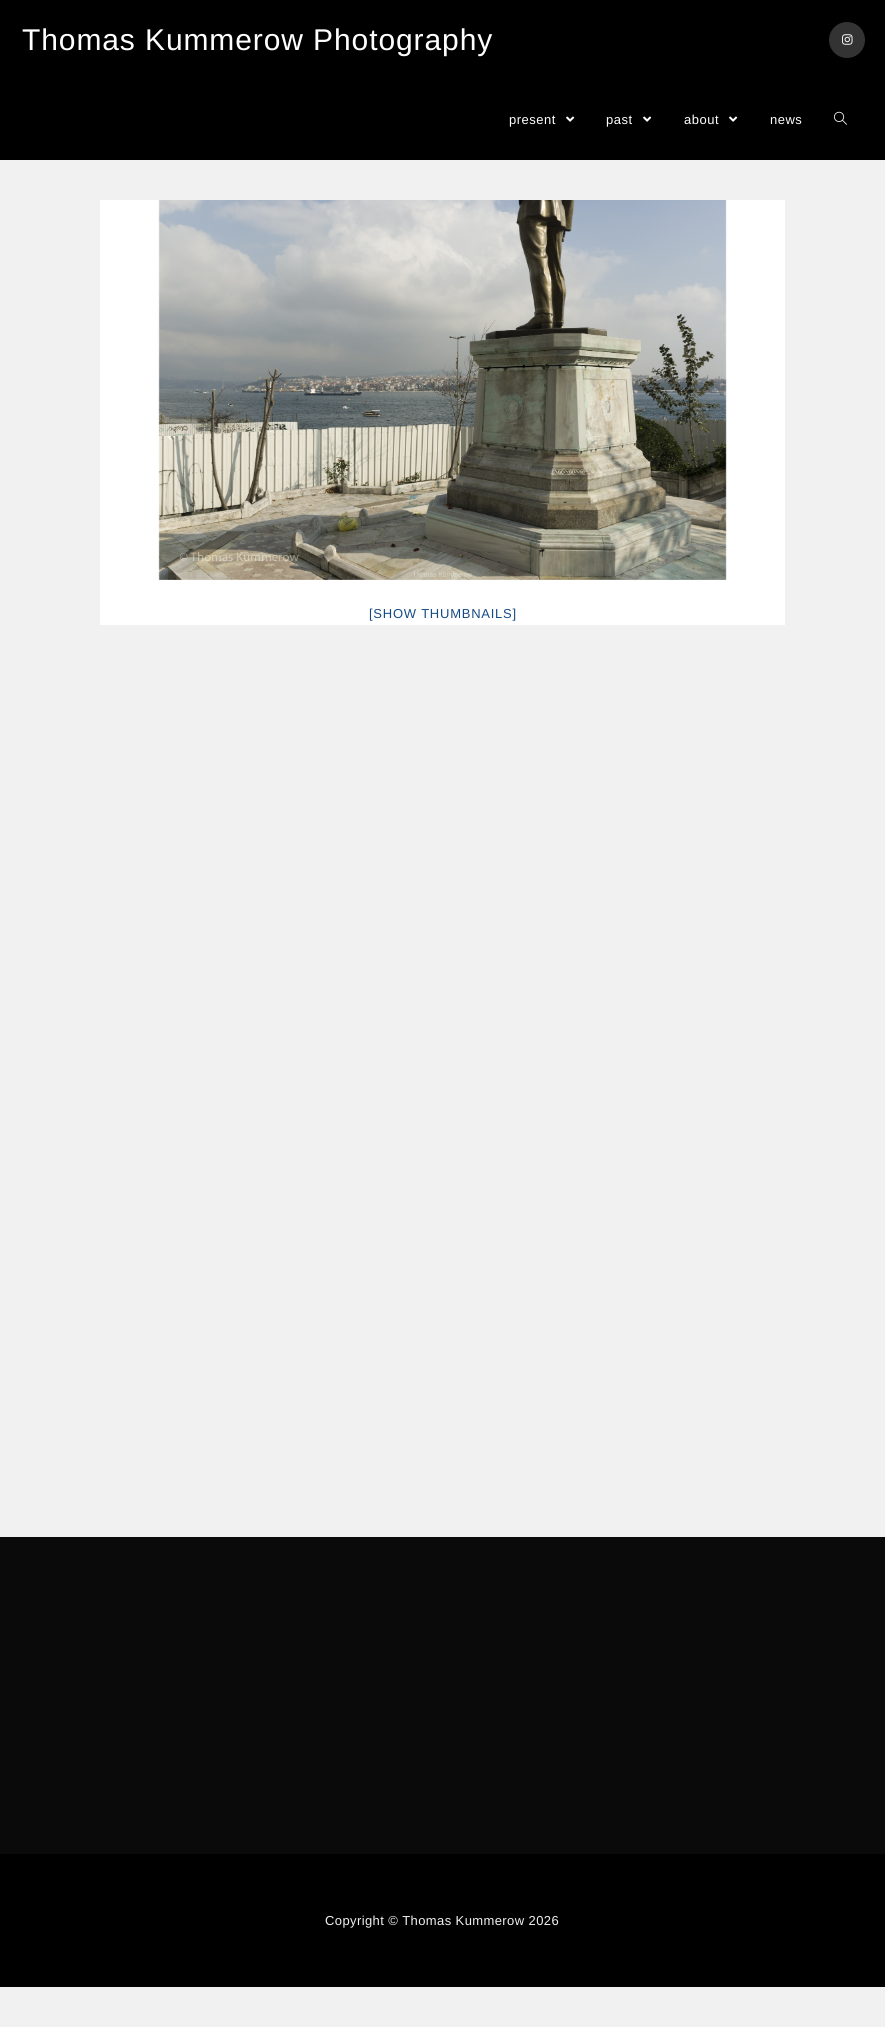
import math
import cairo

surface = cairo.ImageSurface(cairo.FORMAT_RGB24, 885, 2027)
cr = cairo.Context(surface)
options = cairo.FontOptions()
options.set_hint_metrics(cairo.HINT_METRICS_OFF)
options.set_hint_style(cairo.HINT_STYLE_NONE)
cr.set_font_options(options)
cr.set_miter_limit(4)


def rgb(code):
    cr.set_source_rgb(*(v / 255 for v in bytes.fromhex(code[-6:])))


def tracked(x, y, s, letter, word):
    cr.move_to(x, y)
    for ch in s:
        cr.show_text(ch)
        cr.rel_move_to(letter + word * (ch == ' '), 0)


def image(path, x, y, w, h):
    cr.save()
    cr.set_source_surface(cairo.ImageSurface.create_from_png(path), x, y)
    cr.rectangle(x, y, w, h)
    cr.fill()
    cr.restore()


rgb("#f1f1f1")
cr.paint()
rgb("#000000")
cr.rectangle(0, 0, 885, 160)
cr.fill()
rgb("#333333")
cr.arc(847, 40, 18, 0, 2 * math.pi)
cr.fill()
image("img/1.png", 842, 34, 11, 11)
image("img/2.png", 566, 116, 9, 6)
image("img/2.png", 643, 116, 9, 6)
image("img/2.png", 729, 116, 9, 6)
image("img/3.png", 834, 111, 13, 14)
rgb("#ffffff")
cr.rectangle(100, 200, 685, 425)
cr.fill()
image("img/4.png", 158, 200, 569, 380)
rgb("#0a0a0a")
cr.rectangle(0, 1537, 885, 317)
cr.fill()
rgb("#000000")
cr.rectangle(0, 1854, 885, 133)
cr.fill()
cr.select_font_face("Liberation Sans")
cr.set_font_size(30)
rgb("#ffffff")
tracked(22, 50, "Thomas Kummerow Photography", 0.9, 0)
cr.set_font_size(13)
for x, y, s in [
    (509, 124, "present"),
    (606, 124, "past"),
    (684, 124, "about"),
    (770, 124, "news"),
]:
    tracked(x, y, s, 0.5, 0)
rgb("#154b84")
tracked(369, 618, "[SHOW THUMBNAILS]", 0.75, 0)
rgb("#f1f1f1")
tracked(325, 1925, "Copyright © Thomas Kummerow 2026", 0.4, 0)
surface.write_to_png("page.png")
